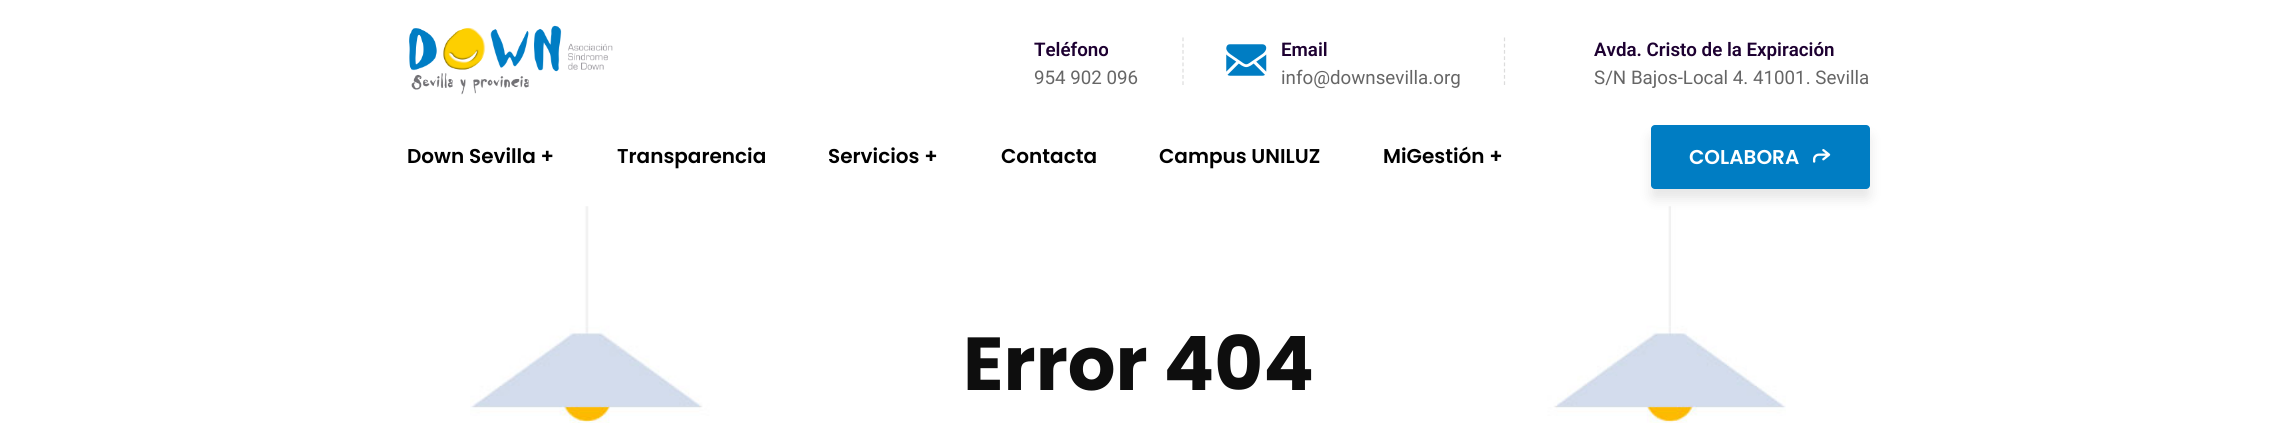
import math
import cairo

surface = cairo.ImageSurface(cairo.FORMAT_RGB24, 2276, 423)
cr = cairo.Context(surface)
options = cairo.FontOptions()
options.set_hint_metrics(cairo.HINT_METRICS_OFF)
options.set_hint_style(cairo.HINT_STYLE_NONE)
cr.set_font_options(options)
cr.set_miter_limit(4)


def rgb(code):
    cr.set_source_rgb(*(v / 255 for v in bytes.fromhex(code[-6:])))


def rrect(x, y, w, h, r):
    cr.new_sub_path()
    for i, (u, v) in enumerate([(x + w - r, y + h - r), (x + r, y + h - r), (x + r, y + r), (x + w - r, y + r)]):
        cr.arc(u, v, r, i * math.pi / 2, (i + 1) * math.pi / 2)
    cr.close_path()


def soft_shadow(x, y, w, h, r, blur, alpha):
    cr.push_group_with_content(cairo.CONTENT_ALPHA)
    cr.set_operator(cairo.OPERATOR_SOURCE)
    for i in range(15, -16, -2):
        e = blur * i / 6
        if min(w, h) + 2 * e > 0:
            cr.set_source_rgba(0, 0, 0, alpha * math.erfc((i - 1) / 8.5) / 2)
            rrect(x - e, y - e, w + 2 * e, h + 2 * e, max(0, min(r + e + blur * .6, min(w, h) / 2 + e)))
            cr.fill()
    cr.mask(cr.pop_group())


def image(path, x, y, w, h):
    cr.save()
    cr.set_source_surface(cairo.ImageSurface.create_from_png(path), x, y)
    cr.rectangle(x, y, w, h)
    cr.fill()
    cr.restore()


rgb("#ffffff")
cr.paint()
image("img/1.png", 409, 25, 204, 70)
cr.new_path()
cr.move_to(1183, 37.5)
cr.line_to(1183, 85)
rgb("#dcdcdc")
cr.set_line_width(1.2)
cr.set_dash([3.75, 2.5])
cr.stroke()
image("img/2.png", 1226, 44, 41, 32)
cr.new_path()
cr.move_to(1504.5, 37.5)
cr.line_to(1504.5, 85)
cr.stroke()
image("img/4.png", 470, 206, 1316, 217)
rgb("#0c0c0c")
soft_shadow(1651, 135, 219, 64, 4, 6, 0.1)
rgb("#007dc3")
rrect(1651, 125, 219, 64, 4)
cr.fill()
image("img/3.png", 1813, 149, 18, 14)
cr.select_font_face("Roboto SemiBold")
cr.set_font_size(18.75)
rgb("#1d0031")
cr.move_to(1034, 56)
cr.show_text("Teléfono")
cr.select_font_face("Roboto")
rgb("#666666")
cr.move_to(1034, 84)
cr.show_text("954 902 096")
cr.select_font_face("Roboto SemiBold")
rgb("#1d0031")
cr.move_to(1281, 56)
cr.show_text("Email")
cr.select_font_face("Roboto")
rgb("#666666")
cr.move_to(1281, 84)
cr.show_text("info@downsevilla.org")
cr.select_font_face("Roboto SemiBold")
rgb("#1d0031")
cr.move_to(1594, 56)
cr.show_text("Avda. Cristo de la Expiración")
cr.select_font_face("Roboto")
rgb("#666666")
cr.move_to(1594, 84)
cr.show_text("S/N Bajos-Local 4. 41001. Sevilla")
cr.select_font_face("Poppins SemiBold")
cr.set_font_size(20)
rgb("#000000")
for x, y, s in [
    (407, 163, "Down Sevilla +"),
    (617, 163, "Transparencia"),
    (828, 163, "Servicios +"),
    (1001, 163, "Contacta"),
    (1159, 163, "Campus UNILUZ"),
    (1383, 163, "MiGestión +"),
]:
    cr.move_to(x, y)
    cr.show_text(s)
rgb("#ffffff")
cr.move_to(1689, 164)
cr.show_text("COLABORA")
cr.select_font_face("Poppins", cairo.FONT_SLANT_NORMAL, cairo.FONT_WEIGHT_BOLD)
cr.set_font_size(75)
rgb("#0e0e0e")
cr.move_to(963, 390)
cr.show_text("Error 404")
surface.write_to_png("page.png")
